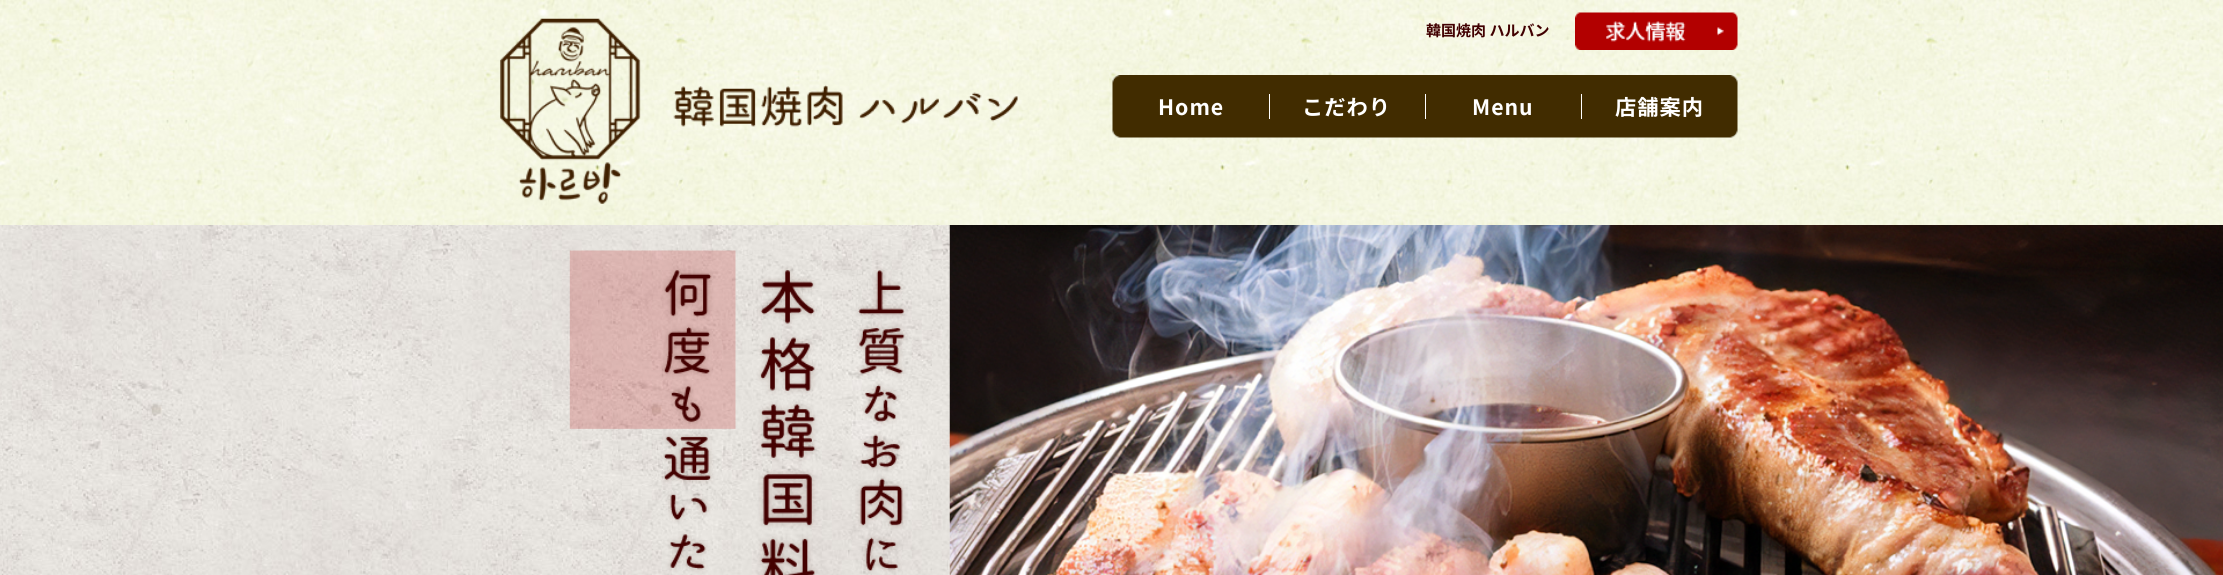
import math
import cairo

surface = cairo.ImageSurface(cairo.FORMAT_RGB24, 2223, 575)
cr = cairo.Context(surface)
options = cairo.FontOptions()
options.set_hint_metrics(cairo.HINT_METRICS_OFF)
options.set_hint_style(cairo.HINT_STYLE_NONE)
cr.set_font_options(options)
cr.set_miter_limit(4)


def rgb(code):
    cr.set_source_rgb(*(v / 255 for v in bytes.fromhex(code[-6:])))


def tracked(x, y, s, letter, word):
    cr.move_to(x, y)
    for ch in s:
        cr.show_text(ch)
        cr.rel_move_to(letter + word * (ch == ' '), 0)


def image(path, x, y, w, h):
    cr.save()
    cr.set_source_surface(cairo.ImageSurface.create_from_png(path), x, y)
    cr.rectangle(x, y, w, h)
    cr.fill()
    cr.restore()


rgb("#ffffff")
cr.paint()
image("img/1.png", 0, 225, 950, 350)
image("img/2.png", 0, 0, 2223, 225)
image("img/3.png", 500, 18, 518, 186)
image("img/4.png", 1575, 12, 163, 38)
image("img/5.png", 1112, 75, 626, 63)
for x, y, w, h, color in [
    (1269, 94, 1, 25, "#ffffff"),
    (1425, 94, 1, 25, "#ffffff"),
    (1581, 94, 1, 25, "#ffffff"),
]:
    rgb(color)
    cr.rectangle(x, y, w, h)
    cr.fill()
image("img/6.png", 569, 225, 1654, 350)
cr.select_font_face("Noto Sans JP", cairo.FONT_SLANT_NORMAL, cairo.FONT_WEIGHT_BOLD)
cr.set_font_size(15)
rgb("#410000")
cr.move_to(1426, 36)
cr.show_text("韓国焼肉 ハルバン")
cr.set_font_size(21.25)
rgb("#ffffff")
for x, y, s in [
    (1158, 115, "Home"),
    (1302, 115, "こだわり"),
    (1472, 115, "Menu"),
    (1615, 115, "店舗案内"),
]:
    tracked(x, y, s, 1, 0)
surface.write_to_png("page.png")
